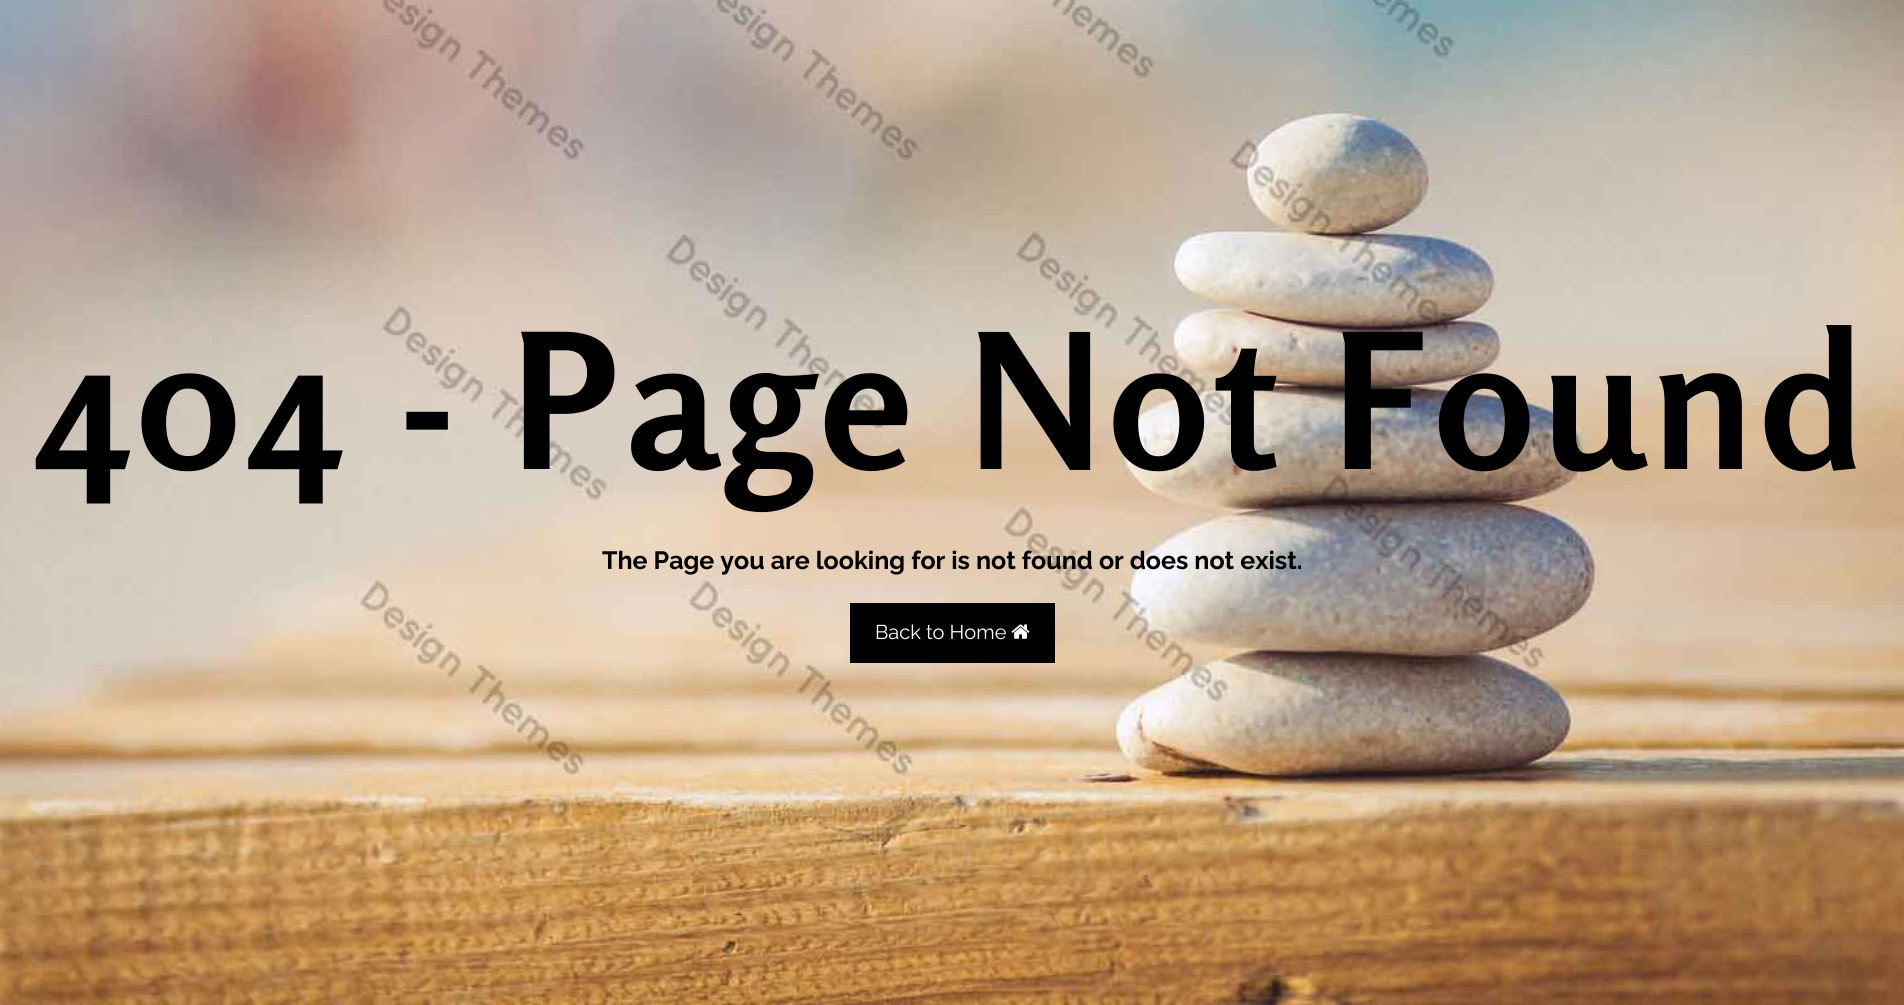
import math
import cairo

surface = cairo.ImageSurface(cairo.FORMAT_RGB24, 1904, 1005)
cr = cairo.Context(surface)
options = cairo.FontOptions()
options.set_hint_metrics(cairo.HINT_METRICS_OFF)
options.set_hint_style(cairo.HINT_STYLE_NONE)
cr.set_font_options(options)
cr.set_miter_limit(4)


def rgb(code):
    cr.set_source_rgb(*(v / 255 for v in bytes.fromhex(code[-6:])))


def tracked(x, y, s, letter, word):
    cr.move_to(x, y)
    for ch in s:
        cr.show_text(ch)
        cr.rel_move_to(letter + word * (ch == ' '), 0)


def image(path, x, y, w, h):
    cr.save()
    cr.set_source_surface(cairo.ImageSurface.create_from_png(path), x, y)
    cr.rectangle(x, y, w, h)
    cr.fill()
    cr.restore()


rgb("#ffffff")
cr.paint()
image("img/1.png", 0, 0, 1904, 1005)
rgb("#000000")
cr.rectangle(850, 603, 205, 60)
cr.fill()
image("img/2.png", 1011, 624, 19, 15)
cr.select_font_face("Rosario", cairo.FONT_SLANT_NORMAL, cairo.FONT_WEIGHT_BOLD)
cr.set_font_size(187.5)
tracked(35, 469, "404 - Page Not Found", 6.25, 0)
cr.select_font_face("Raleway", cairo.FONT_SLANT_NORMAL, cairo.FONT_WEIGHT_BOLD)
cr.set_font_size(25)
cr.move_to(602, 569)
cr.show_text("The Page you are looking for is not found or does not exist.")
cr.select_font_face("Raleway")
cr.set_font_size(20)
rgb("#ffffff")
cr.move_to(875, 639)
cr.show_text("Back to Home")
surface.write_to_png("page.png")
